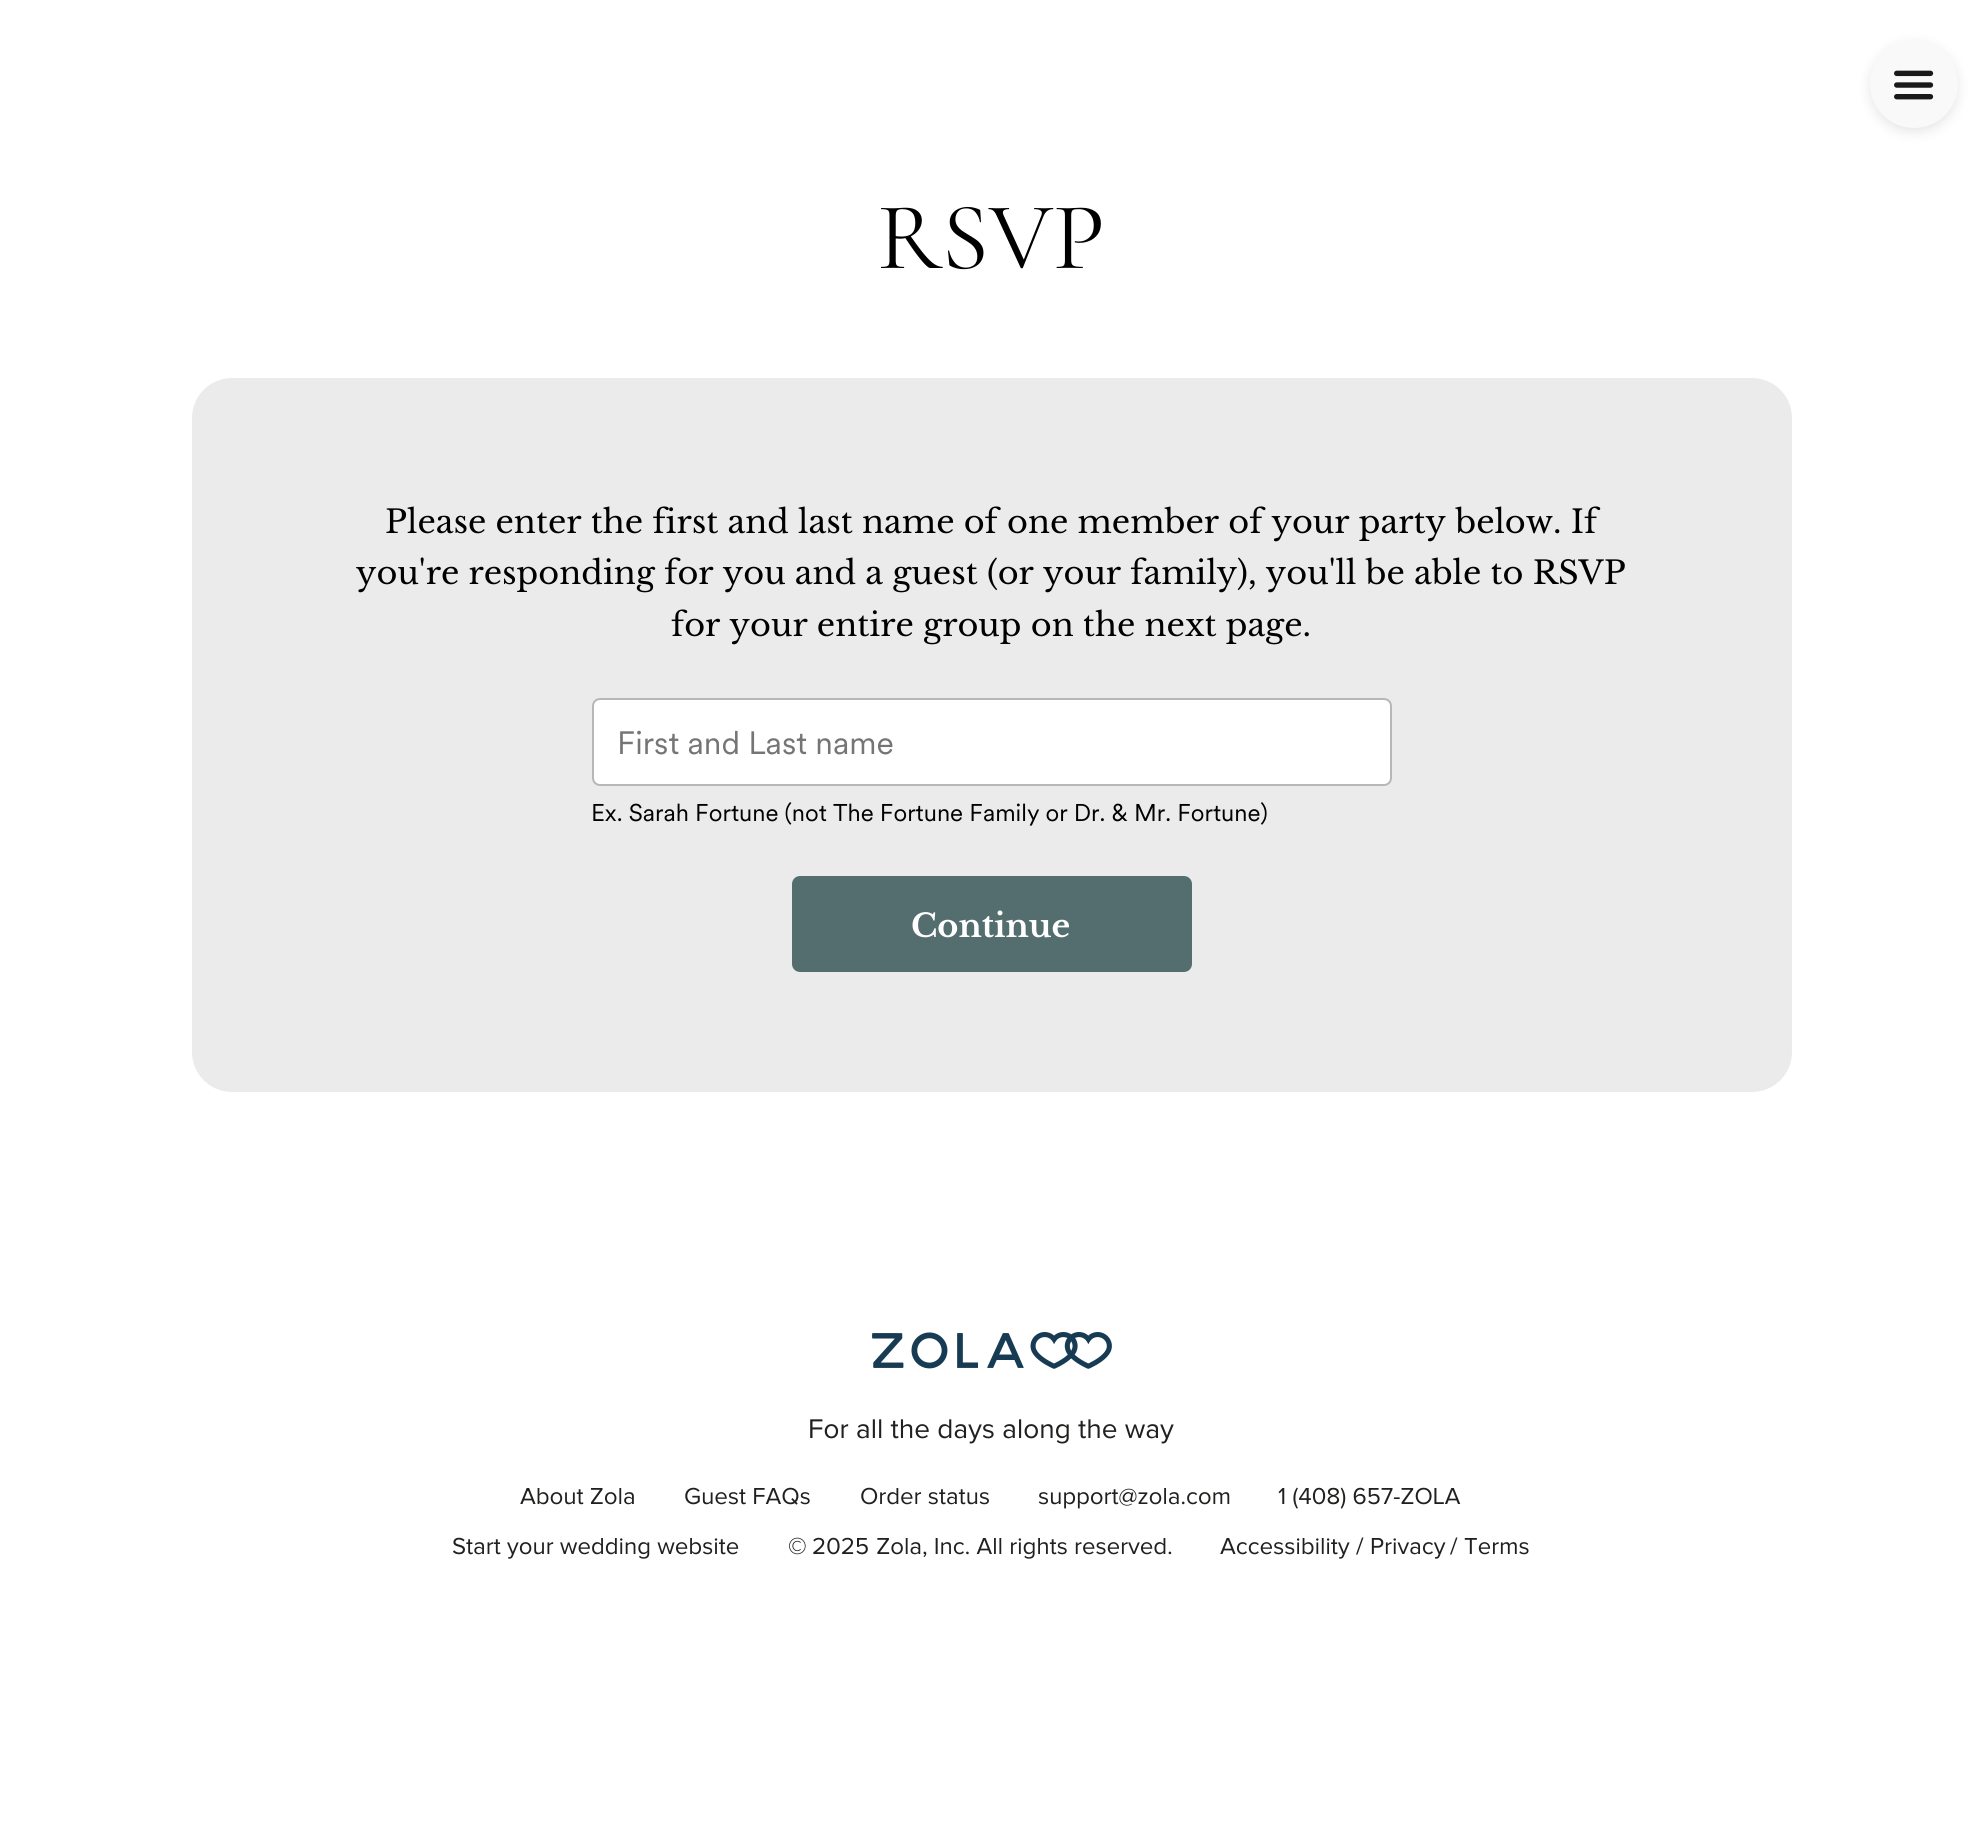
import math
import cairo

surface = cairo.ImageSurface(cairo.FORMAT_RGB24, 1981, 1830)
cr = cairo.Context(surface)
options = cairo.FontOptions()
options.set_hint_metrics(cairo.HINT_METRICS_OFF)
options.set_hint_style(cairo.HINT_STYLE_NONE)
cr.set_font_options(options)
cr.set_miter_limit(4)


def rgb(code):
    cr.set_source_rgb(*(v / 255 for v in bytes.fromhex(code[-6:])))


def rrect(x, y, w, h, r):
    cr.new_sub_path()
    for i, (u, v) in enumerate([(x + w - r, y + h - r), (x + r, y + h - r), (x + r, y + r), (x + w - r, y + r)]):
        cr.arc(u, v, r, i * math.pi / 2, (i + 1) * math.pi / 2)
    cr.close_path()


def soft_shadow(x, y, w, h, r, blur, alpha):
    cr.push_group_with_content(cairo.CONTENT_ALPHA)
    cr.set_operator(cairo.OPERATOR_SOURCE)
    for i in range(15, -16, -2):
        e = blur * i / 6
        if min(w, h) + 2 * e > 0:
            cr.set_source_rgba(0, 0, 0, alpha * math.erfc((i - 1) / 8.5) / 2)
            rrect(x - e, y - e, w + 2 * e, h + 2 * e, max(0, min(r + e + blur * .6, min(w, h) / 2 + e)))
            cr.fill()
    cr.mask(cr.pop_group())


def image(path, x, y, w, h):
    cr.save()
    cr.set_source_surface(cairo.ImageSurface.create_from_png(path), x, y)
    cr.rectangle(x, y, w, h)
    cr.fill()
    cr.restore()


rgb("#ffffff")
cr.paint()
rgb("#000000")
soft_shadow(1870, 44, 88, 88, 44, 6, 0.1)
rgb("#f9f9f9")
cr.arc(1914, 84, 44, 0, 2 * math.pi)
cr.fill()
image("img/1.png", 1894, 70, 40, 30)
rgb("#ebebeb")
rrect(192, 378, 1600, 714, 40)
cr.fill()
rgb("#ffffff")
rrect(593, 699, 798, 86, 7)
cr.fill_preserve()
rgb("#b7b7b7")
cr.stroke()
rgb("#546e6f")
rrect(792, 876, 400, 96, 8)
cr.fill()
image("img/2.png", 872, 1332, 240, 37)
image("img/3.png", 810, 1419, 364, 25)
image("img/4.png", 520, 1488, 114, 17)
image("img/5.png", 685, 1487, 125, 18)
image("img/6.png", 861, 1487, 128, 18)
image("img/7.png", 1038, 1488, 192, 21)
image("img/8.png", 1278, 1487, 183, 22)
image("img/9.png", 453, 1537, 286, 22)
image("img/10.png", 789, 1537, 17, 18)
image("img/11.png", 813, 1537, 55, 18)
image("img/12.png", 877, 1538, 295, 21)
image("img/13.png", 1220, 1538, 130, 21)
rgb("#21201f")
cr.new_path()
cr.move_to(1357.5, 1554.5)
cr.line_to(1363.5, 1537.5)
cr.line_to(1362, 1537.5)
cr.line_to(1356, 1554.5)
cr.close_path()
cr.fill()
image("img/14.png", 1371, 1538, 75, 21)
cr.new_path()
cr.move_to(1451.5, 1554.5)
cr.line_to(1457.5, 1537.5)
cr.line_to(1456, 1537.5)
cr.line_to(1450, 1554.5)
cr.close_path()
cr.fill()
image("img/15.png", 1464, 1538, 65, 17)
cr.select_font_face("Cormorant Garamond")
cr.set_font_size(96)
rgb("#000000")
cr.move_to(877, 268)
cr.show_text("RSVP")
cr.select_font_face("Libre Baskerville")
cr.set_font_size(32)
for x, y, s in [
    (385, 533, "Please enter the first and last name of one member of your party below. If"),
    (356, 584, "you're responding for you and a guest (or your family), you'll be able to RSVP"),
    (671, 636, "for your entire group on the next page."),
]:
    cr.move_to(x, y)
    cr.show_text(s)
cr.select_font_face("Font")
rgb("#757575")
cr.move_to(617, 754)
cr.show_text("First and Last name")
cr.set_font_size(24)
rgb("#000000")
cr.move_to(591, 821)
cr.show_text("Ex. Sarah Fortune (not The Fortune Family or Dr. & Mr. Fortune)")
cr.select_font_face("Libre Baskerville", cairo.FONT_SLANT_NORMAL, cairo.FONT_WEIGHT_BOLD)
cr.set_font_size(32)
rgb("#ffffff")
cr.move_to(911, 937)
cr.show_text("Continue")
surface.write_to_png("page.png")
